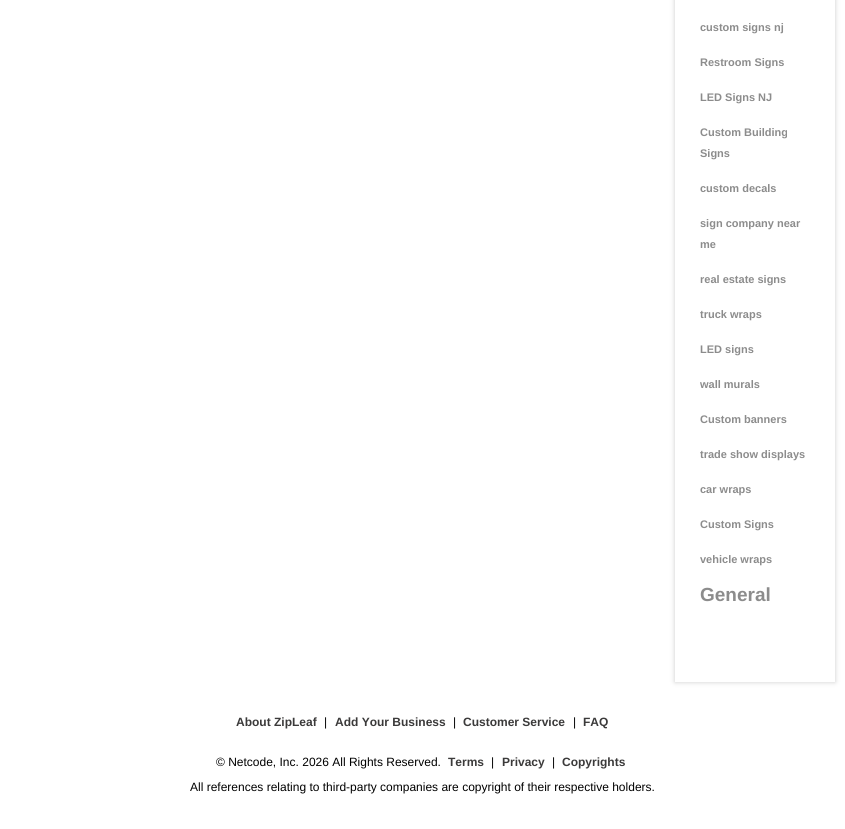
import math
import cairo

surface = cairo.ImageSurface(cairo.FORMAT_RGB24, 845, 829)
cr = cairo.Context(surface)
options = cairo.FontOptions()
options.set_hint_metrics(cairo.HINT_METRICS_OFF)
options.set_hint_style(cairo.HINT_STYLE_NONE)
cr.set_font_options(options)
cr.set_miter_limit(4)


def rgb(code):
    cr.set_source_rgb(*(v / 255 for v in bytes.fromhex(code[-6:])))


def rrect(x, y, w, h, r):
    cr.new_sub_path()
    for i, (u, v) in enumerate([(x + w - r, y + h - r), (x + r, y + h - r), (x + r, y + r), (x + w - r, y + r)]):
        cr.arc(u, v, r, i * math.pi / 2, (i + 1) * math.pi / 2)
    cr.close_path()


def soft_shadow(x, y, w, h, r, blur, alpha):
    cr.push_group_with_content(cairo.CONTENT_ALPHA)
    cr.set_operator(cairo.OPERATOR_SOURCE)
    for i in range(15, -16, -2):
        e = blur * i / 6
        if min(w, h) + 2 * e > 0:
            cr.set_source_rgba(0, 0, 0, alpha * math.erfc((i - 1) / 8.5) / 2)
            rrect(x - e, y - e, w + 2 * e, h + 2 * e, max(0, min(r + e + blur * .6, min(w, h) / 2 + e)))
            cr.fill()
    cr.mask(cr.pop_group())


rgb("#ffffff")
cr.paint()
cr.save()
cr.set_fill_rule(cairo.FILL_RULE_EVEN_ODD)
cr.new_path()
cr.move_to(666, 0)
cr.line_to(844, 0)
cr.line_to(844, 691)
cr.line_to(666, 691)
cr.close_path()
cr.move_to(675, -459)
cr.line_to(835, -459)
cr.line_to(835, 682)
cr.line_to(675, 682)
cr.close_path()
cr.clip()
rgb("#cccccc")
soft_shadow(675, -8, 160, 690, 0, 2.5, 1)
cr.restore()
cr.select_font_face("Liberation Sans", cairo.FONT_SLANT_NORMAL, cairo.FONT_WEIGHT_BOLD)
cr.set_font_size(11)
rgb("#8c8c8c")
for x, y, s in [
    (700, 31, "custom signs nj"),
    (700, 66, "Restroom Signs"),
    (700, 101, "LED Signs NJ"),
    (700, 136, "Custom Building"),
    (700, 157, "Signs"),
    (700, 192, "custom decals"),
    (700, 227, "sign company near"),
    (700, 248, "me"),
    (700, 283, "real estate signs"),
    (700, 318, "truck wraps"),
    (700, 353, "LED signs"),
    (700, 388, "wall murals"),
    (700, 423, "Custom banners"),
    (700, 458, "trade show displays"),
    (700, 493, "car wraps"),
    (700, 528, "Custom Signs"),
    (700, 563, "vehicle wraps"),
]:
    cr.move_to(x, y)
    cr.show_text(s)
cr.set_font_size(19)
cr.move_to(700, 601)
cr.show_text("General")
cr.set_font_size(12)
rgb("#3b3a3a")
cr.move_to(236, 726)
cr.show_text("About ZipLeaf")
cr.select_font_face("Liberation Sans")
rgb("#000000")
cr.move_to(324, 726)
cr.show_text("|")
cr.select_font_face("Liberation Sans", cairo.FONT_SLANT_NORMAL, cairo.FONT_WEIGHT_BOLD)
rgb("#3b3a3a")
cr.move_to(335, 726)
cr.show_text("Add Your Business")
cr.select_font_face("Liberation Sans")
rgb("#000000")
cr.move_to(453, 726)
cr.show_text("|")
cr.select_font_face("Liberation Sans", cairo.FONT_SLANT_NORMAL, cairo.FONT_WEIGHT_BOLD)
rgb("#3b3a3a")
cr.move_to(463, 726)
cr.show_text("Customer Service")
cr.select_font_face("Liberation Sans")
rgb("#000000")
cr.move_to(573, 726)
cr.show_text("|")
cr.select_font_face("Liberation Sans", cairo.FONT_SLANT_NORMAL, cairo.FONT_WEIGHT_BOLD)
rgb("#3b3a3a")
cr.move_to(583, 726)
cr.show_text("FAQ")
cr.move_to(448, 766)
cr.show_text("Terms")
cr.select_font_face("Liberation Sans")
rgb("#000000")
cr.move_to(491, 766)
cr.show_text("|")
cr.select_font_face("Liberation Sans", cairo.FONT_SLANT_NORMAL, cairo.FONT_WEIGHT_BOLD)
rgb("#3b3a3a")
cr.move_to(502, 766)
cr.show_text("Privacy")
cr.select_font_face("Liberation Sans")
rgb("#000000")
cr.move_to(552, 766)
cr.show_text("|")
cr.select_font_face("Liberation Sans", cairo.FONT_SLANT_NORMAL, cairo.FONT_WEIGHT_BOLD)
rgb("#3b3a3a")
cr.move_to(562, 766)
cr.show_text("Copyrights")
cr.select_font_face("Liberation Sans")
rgb("#000000")
cr.move_to(190, 791)
cr.show_text("All references relating to third-party companies are copyright of their respective holders.")
cr.move_to(216, 766)
cr.show_text("© Netcode, Inc. 2026 All Rights Reserved.")
surface.write_to_png("page.png")
